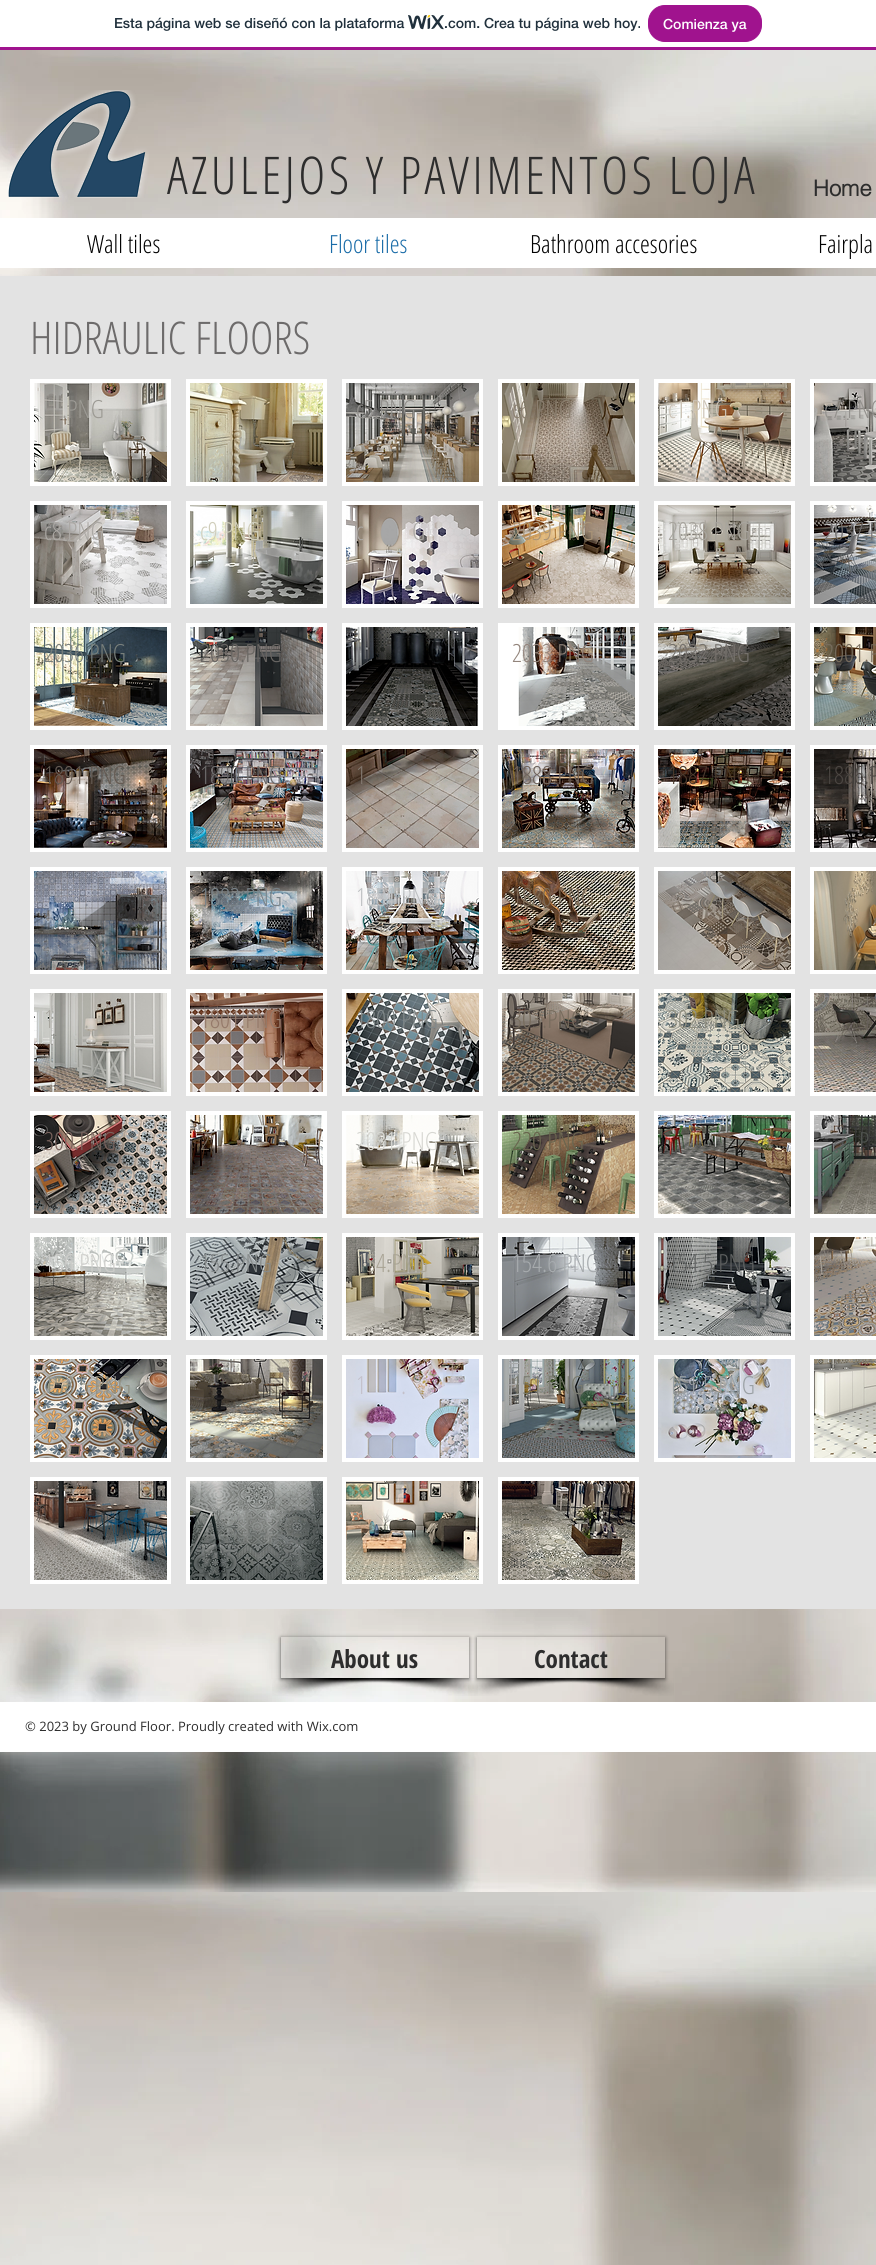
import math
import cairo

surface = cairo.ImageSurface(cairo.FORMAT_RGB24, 876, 2265)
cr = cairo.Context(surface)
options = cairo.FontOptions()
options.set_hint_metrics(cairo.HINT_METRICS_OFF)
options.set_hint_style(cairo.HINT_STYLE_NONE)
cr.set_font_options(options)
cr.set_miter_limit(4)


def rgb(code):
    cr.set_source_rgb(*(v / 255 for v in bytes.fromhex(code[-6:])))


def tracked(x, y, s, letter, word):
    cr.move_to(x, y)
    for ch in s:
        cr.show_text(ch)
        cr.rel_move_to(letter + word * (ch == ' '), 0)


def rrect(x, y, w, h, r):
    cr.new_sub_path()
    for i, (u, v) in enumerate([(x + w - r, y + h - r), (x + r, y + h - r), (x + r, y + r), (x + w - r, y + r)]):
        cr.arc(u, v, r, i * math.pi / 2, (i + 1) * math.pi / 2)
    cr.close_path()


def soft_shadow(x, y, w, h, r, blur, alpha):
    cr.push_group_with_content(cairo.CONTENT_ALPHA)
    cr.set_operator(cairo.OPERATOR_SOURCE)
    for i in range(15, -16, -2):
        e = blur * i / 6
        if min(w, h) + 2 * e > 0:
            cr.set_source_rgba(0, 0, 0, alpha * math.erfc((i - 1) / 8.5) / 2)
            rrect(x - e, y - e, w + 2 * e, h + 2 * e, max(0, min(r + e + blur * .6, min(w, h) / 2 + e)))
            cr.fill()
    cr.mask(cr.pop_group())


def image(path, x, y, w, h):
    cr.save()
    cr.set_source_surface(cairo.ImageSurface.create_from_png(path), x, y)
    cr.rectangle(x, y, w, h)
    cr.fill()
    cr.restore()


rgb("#ffffff")
cr.paint()
rgb("#a0138e")
cr.rectangle(0, 47, 876, 3)
cr.fill()
image("img/1.png", 408, 15, 36, 15)
rrect(648.5, 5.5, 113, 36, 16.5)
cr.fill_preserve()
cr.set_line_width(1)
cr.stroke()
image("img/2.png", 0, 50, 876, 2215)
image("img/3.png", 7, 90, 142, 108)
for x, y, w, h, color in [
    (0, 218, 876, 50, "#ffffff"),
    (0, 276, 876, 1333, "#e3e3e3"),
    (30, 379, 141, 107, "#ffffff"),
]:
    rgb(color)
    cr.rectangle(x, y, w, h)
    cr.fill()
image("img/4.png", 34, 383, 133, 99)
cr.rectangle(186, 379, 141, 107)
cr.fill()
image("img/5.png", 190, 383, 133, 99)
cr.rectangle(342, 379, 141, 107)
cr.fill()
image("img/6.png", 346, 383, 133, 99)
cr.rectangle(498, 379, 141, 107)
cr.fill()
image("img/7.png", 502, 383, 133, 99)
cr.rectangle(654, 379, 141, 107)
cr.fill()
image("img/8.png", 658, 383, 133, 99)
cr.rectangle(810, 379, 66, 107)
cr.fill()
image("img/9.png", 814, 383, 62, 99)
cr.rectangle(30, 501, 141, 107)
cr.fill()
image("img/10.png", 34, 505, 133, 99)
cr.rectangle(186, 501, 141, 107)
cr.fill()
image("img/11.png", 190, 505, 133, 99)
cr.rectangle(342, 501, 141, 107)
cr.fill()
image("img/12.png", 346, 505, 133, 99)
cr.rectangle(498, 501, 141, 107)
cr.fill()
image("img/13.png", 502, 505, 133, 99)
cr.rectangle(654, 501, 141, 107)
cr.fill()
image("img/14.png", 658, 505, 133, 99)
cr.rectangle(810, 501, 66, 107)
cr.fill()
image("img/15.png", 814, 505, 62, 99)
cr.rectangle(30, 623, 141, 107)
cr.fill()
image("img/16.png", 34, 627, 133, 99)
cr.rectangle(186, 623, 141, 107)
cr.fill()
image("img/17.png", 190, 627, 133, 99)
cr.rectangle(342, 623, 141, 107)
cr.fill()
image("img/18.png", 346, 627, 132, 99)
cr.rectangle(498, 623, 141, 107)
cr.fill()
image("img/19.png", 518, 627, 117, 99)
cr.rectangle(654, 623, 141, 107)
cr.fill()
image("img/20.png", 658, 627, 133, 99)
cr.rectangle(810, 623, 66, 107)
cr.fill()
image("img/21.png", 814, 627, 62, 99)
cr.rectangle(30, 745, 141, 107)
cr.fill()
image("img/22.png", 34, 749, 133, 99)
cr.rectangle(186, 745, 141, 107)
cr.fill()
image("img/23.png", 190, 749, 133, 99)
cr.rectangle(342, 745, 141, 107)
cr.fill()
image("img/24.png", 346, 749, 133, 99)
cr.rectangle(498, 745, 141, 107)
cr.fill()
image("img/25.png", 502, 749, 133, 99)
cr.rectangle(654, 745, 141, 107)
cr.fill()
image("img/26.png", 658, 749, 133, 99)
cr.rectangle(810, 745, 66, 107)
cr.fill()
image("img/27.png", 814, 749, 62, 99)
cr.rectangle(30, 867, 141, 107)
cr.fill()
image("img/28.png", 34, 871, 133, 99)
cr.rectangle(186, 867, 141, 107)
cr.fill()
image("img/29.png", 190, 871, 133, 99)
cr.rectangle(342, 867, 141, 107)
cr.fill()
image("img/30.png", 346, 871, 133, 99)
cr.rectangle(498, 867, 141, 107)
cr.fill()
image("img/31.png", 502, 871, 133, 99)
cr.rectangle(654, 867, 141, 107)
cr.fill()
image("img/32.png", 658, 871, 133, 99)
cr.rectangle(810, 867, 66, 107)
cr.fill()
image("img/33.png", 814, 871, 62, 99)
cr.rectangle(30, 989, 141, 107)
cr.fill()
image("img/34.png", 34, 993, 133, 99)
cr.rectangle(186, 989, 141, 107)
cr.fill()
image("img/35.png", 190, 993, 133, 99)
cr.rectangle(342, 989, 141, 107)
cr.fill()
image("img/36.png", 346, 993, 133, 99)
cr.rectangle(498, 989, 141, 107)
cr.fill()
image("img/37.png", 502, 993, 133, 99)
cr.rectangle(654, 989, 141, 107)
cr.fill()
image("img/38.png", 658, 993, 133, 99)
cr.rectangle(810, 989, 66, 107)
cr.fill()
image("img/39.png", 814, 993, 62, 99)
cr.rectangle(30, 1111, 141, 107)
cr.fill()
image("img/40.png", 34, 1115, 133, 99)
cr.rectangle(186, 1111, 141, 107)
cr.fill()
image("img/41.png", 190, 1115, 133, 99)
cr.rectangle(342, 1111, 141, 107)
cr.fill()
image("img/42.png", 346, 1115, 133, 99)
cr.rectangle(498, 1111, 141, 107)
cr.fill()
image("img/43.png", 502, 1115, 133, 99)
cr.rectangle(654, 1111, 141, 107)
cr.fill()
image("img/44.png", 658, 1115, 133, 99)
cr.rectangle(810, 1111, 66, 107)
cr.fill()
image("img/45.png", 814, 1115, 62, 99)
cr.rectangle(30, 1233, 141, 107)
cr.fill()
image("img/46.png", 34, 1237, 133, 99)
cr.rectangle(186, 1233, 141, 107)
cr.fill()
image("img/47.png", 190, 1237, 133, 99)
cr.rectangle(342, 1233, 141, 107)
cr.fill()
image("img/48.png", 346, 1237, 133, 99)
cr.rectangle(498, 1233, 141, 107)
cr.fill()
image("img/49.png", 502, 1237, 133, 99)
cr.rectangle(654, 1233, 141, 107)
cr.fill()
image("img/50.png", 658, 1237, 133, 99)
cr.rectangle(810, 1233, 66, 107)
cr.fill()
image("img/51.png", 814, 1237, 62, 99)
cr.rectangle(30, 1355, 141, 107)
cr.fill()
image("img/52.png", 34, 1359, 133, 99)
cr.rectangle(186, 1355, 141, 107)
cr.fill()
image("img/53.png", 190, 1359, 133, 99)
cr.rectangle(342, 1355, 141, 107)
cr.fill()
image("img/54.png", 346, 1359, 133, 99)
cr.rectangle(498, 1355, 141, 107)
cr.fill()
image("img/55.png", 502, 1359, 133, 99)
cr.rectangle(654, 1355, 141, 107)
cr.fill()
image("img/56.png", 658, 1359, 133, 99)
cr.rectangle(810, 1355, 66, 107)
cr.fill()
image("img/57.png", 814, 1359, 62, 99)
cr.rectangle(30, 1477, 141, 107)
cr.fill()
image("img/58.png", 34, 1481, 133, 99)
cr.rectangle(186, 1477, 141, 107)
cr.fill()
image("img/59.png", 190, 1481, 133, 99)
cr.rectangle(342, 1477, 141, 107)
cr.fill()
image("img/60.png", 346, 1481, 133, 99)
cr.rectangle(498, 1477, 141, 107)
cr.fill()
image("img/61.png", 502, 1481, 133, 99)
image("img/62.png", 272, 1678, 154, 18)
image("img/63.png", 351, 1678, 127, 18)
cr.save()
cr.set_fill_rule(cairo.FILL_RULE_EVEN_ODD)
cr.new_path()
cr.move_to(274, 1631)
cr.line_to(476, 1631)
cr.line_to(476, 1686)
cr.line_to(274, 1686)
cr.close_path()
cr.move_to(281, 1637)
cr.line_to(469, 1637)
cr.line_to(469, 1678)
cr.line_to(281, 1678)
cr.close_path()
cr.clip()
rgb("#000000")
soft_shadow(281, 1638, 188, 41, 0, 2, 0.6)
cr.restore()
cr.set_source_rgba(1, 1, 1, 0.08)
cr.rectangle(281, 1637, 188, 41)
cr.fill()
image("img/64.png", 468, 1678, 154, 18)
image("img/65.png", 547, 1678, 127, 18)
cr.save()
cr.set_fill_rule(cairo.FILL_RULE_EVEN_ODD)
cr.new_path()
cr.move_to(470, 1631)
cr.line_to(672, 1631)
cr.line_to(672, 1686)
cr.line_to(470, 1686)
cr.close_path()
cr.move_to(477, 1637)
cr.line_to(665, 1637)
cr.line_to(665, 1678)
cr.line_to(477, 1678)
cr.close_path()
cr.clip()
rgb("#000000")
soft_shadow(477, 1638, 188, 41, 0, 2, 0.6)
cr.restore()
cr.rectangle(477, 1637, 188, 41)
cr.fill()
rgb("#ffffff")
cr.rectangle(0, 1702, 876, 50)
cr.fill()
cr.select_font_face("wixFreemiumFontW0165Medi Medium")
cr.set_font_size(14)
rgb("#20303c")
cr.move_to(114, 28)
cr.show_text("Esta página web se diseñó con la plataforma")
cr.move_to(444, 28)
cr.show_text(".com. Crea tu página web hoy.")
rgb("#ffffff")
cr.move_to(663, 29)
cr.show_text("Comienza ya")
cr.select_font_face("Open Sans Condensed Light")
cr.set_font_size(52)
rgb("#2d2d2d")
tracked(167, 194, "AZULEJOS Y PAVIMENTOS LOJA", 3.4, 0)
cr.select_font_face("helvetica", cairo.FONT_SLANT_NORMAL, cairo.FONT_WEIGHT_BOLD)
cr.set_font_size(22)
cr.move_to(813, 196)
cr.show_text("Home")
cr.select_font_face("Open Sans Condensed Light")
cr.set_font_size(25)
rgb("#000000")
cr.move_to(87, 253)
cr.show_text("Wall tiles")
rgb("#1a6ca8")
cr.move_to(329, 253)
cr.show_text("Floor tiles")
rgb("#000000")
cr.move_to(530, 253)
cr.show_text("Bathroom accesories")
cr.move_to(818, 253)
cr.show_text("Fairpla")
cr.set_font_size(45)
rgb("#6d6b6b")
cr.move_to(30, 354)
cr.show_text("HIDRAULIC FLOORS")
cr.set_font_size(25)
rgb("#9c9a94")
cr.move_to(62, 418)
cr.show_text(".PNG")
rgb("#92908c")
cr.move_to(356, 418)
cr.show_text("c5.PNG")
rgb("#8b7f6f")
cr.move_to(512, 418)
cr.show_text("c6.PNG")
rgb("#ccc3b6")
cr.move_to(668, 418)
cr.show_text("c1.PNG")
rgb("#92908c")
cr.move_to(824, 418)
cr.show_text("c7.PNG")
rgb("#aba8a4")
cr.move_to(44, 540)
cr.show_text("c8.PNG")
rgb("#d0cebb")
cr.move_to(200, 540)
cr.show_text("c9.PNG")
rgb("#aba8a4")
cr.move_to(356, 540)
cr.show_text("c")
cr.move_to(412, 540)
cr.show_text("G")
rgb("#a99477")
cr.move_to(512, 540)
cr.show_text("2039.PNG")
rgb("#a8a59e")
cr.move_to(668, 540)
cr.show_text("2038.PNG")
rgb("#6d6b6b")
cr.move_to(824, 540)
cr.show_text("2037.P")
rgb("#787f7b")
cr.move_to(44, 662)
cr.show_text("2036.PNG")
rgb("#686562")
cr.move_to(200, 662)
cr.show_text("2030.PNG")
rgb("#92847b")
cr.move_to(512, 662)
cr.show_text("2033.PNG")
rgb("#75716c")
cr.move_to(668, 662)
cr.show_text("2032.PNG")
rgb("#776c5d")
cr.move_to(824, 662)
cr.show_text("2001.P")
rgb("#645a52")
cr.move_to(44, 784)
cr.show_text("1891.PNG")
rgb("#6d6b6b")
cr.move_to(200, 784)
cr.show_text("1890.PNG")
rgb("#82786f")
cr.move_to(356, 784)
cr.show_text("1")
rgb("#6f645d")
cr.move_to(512, 784)
cr.show_text("1888.PNG")
rgb("#4a3a2c")
cr.move_to(668, 784)
cr.show_text("1887.PNG")
rgb("#4a4541")
cr.move_to(824, 784)
cr.show_text("1886.P")
rgb("#838996")
cr.move_to(84, 906)
cr.show_text(".")
rgb("#788288")
cr.move_to(200, 906)
cr.show_text("1883.PNG")
rgb("#bec0c2")
cr.move_to(356, 906)
cr.show_text("1881.PNG")
rgb("#7b6956")
cr.move_to(512, 906)
cr.show_text("1880.PNG")
rgb("#a8a59e")
cr.move_to(44, 1028)
cr.show_text("1")
cr.move_to(84, 1028)
cr.show_text(".")
rgb("#957a6a")
cr.move_to(200, 1028)
cr.show_text("1801.PNG")
rgb("#818889")
cr.move_to(356, 1028)
cr.show_text("1800.PNG")
rgb("#776c5d")
cr.move_to(512, 1028)
cr.show_text("303.PNG")
rgb("#908f80")
cr.move_to(668, 1028)
cr.show_text("302.PNG")
rgb("#7a645e")
cr.move_to(44, 1150)
cr.show_text("300.PNG")
rgb("#776c5d")
cr.move_to(200, 1150)
cr.show_text("2")
rgb("#d7d7d2")
cr.move_to(356, 1150)
cr.show_text("2031.PNG")
rgb("#69644e")
cr.move_to(512, 1150)
cr.show_text("220.PNG")
rgb("#4f534f")
cr.move_to(859, 1150)
cr.show_text("P")
rgb("#cdcdca")
cr.move_to(44, 1272)
cr.show_text("156.PNG")
rgb("#878b8b")
cr.move_to(200, 1272)
cr.show_text("155.PNG")
rgb("#a9a495")
cr.move_to(356, 1272)
cr.show_text("154.PNG")
rgb("#a7abae")
cr.move_to(512, 1272)
cr.show_text("154.6.PNG")
rgb("#606262")
cr.move_to(668, 1272)
cr.show_text("154.5.PNG")
rgb("#908f80")
cr.move_to(44, 1394)
cr.show_text("153.5.PNG")
rgb("#c3c0ca")
cr.move_to(356, 1394)
cr.show_text("1")
cr.move_to(401, 1394)
cr.show_text(".")
rgb("#7a7b6f")
cr.move_to(512, 1394)
cr.show_text("151.PNG")
rgb("#9aa0a4")
cr.move_to(668, 1394)
cr.show_text("151.5.PNG")
rgb("#92908c")
cr.move_to(210, 1516)
cr.show_text(".")
cr.select_font_face("Open Sans Condensed", cairo.FONT_SLANT_NORMAL, cairo.FONT_WEIGHT_BOLD)
rgb("#2d2d2d")
cr.move_to(331, 1668)
cr.show_text("About us")
cr.move_to(534, 1668)
cr.show_text("Contact")
cr.select_font_face("Open Sans")
cr.set_font_size(13)
cr.move_to(25, 1731)
cr.show_text("© 2023 by Ground Floor. Proudly created with Wix.com")
surface.write_to_png("page.png")
